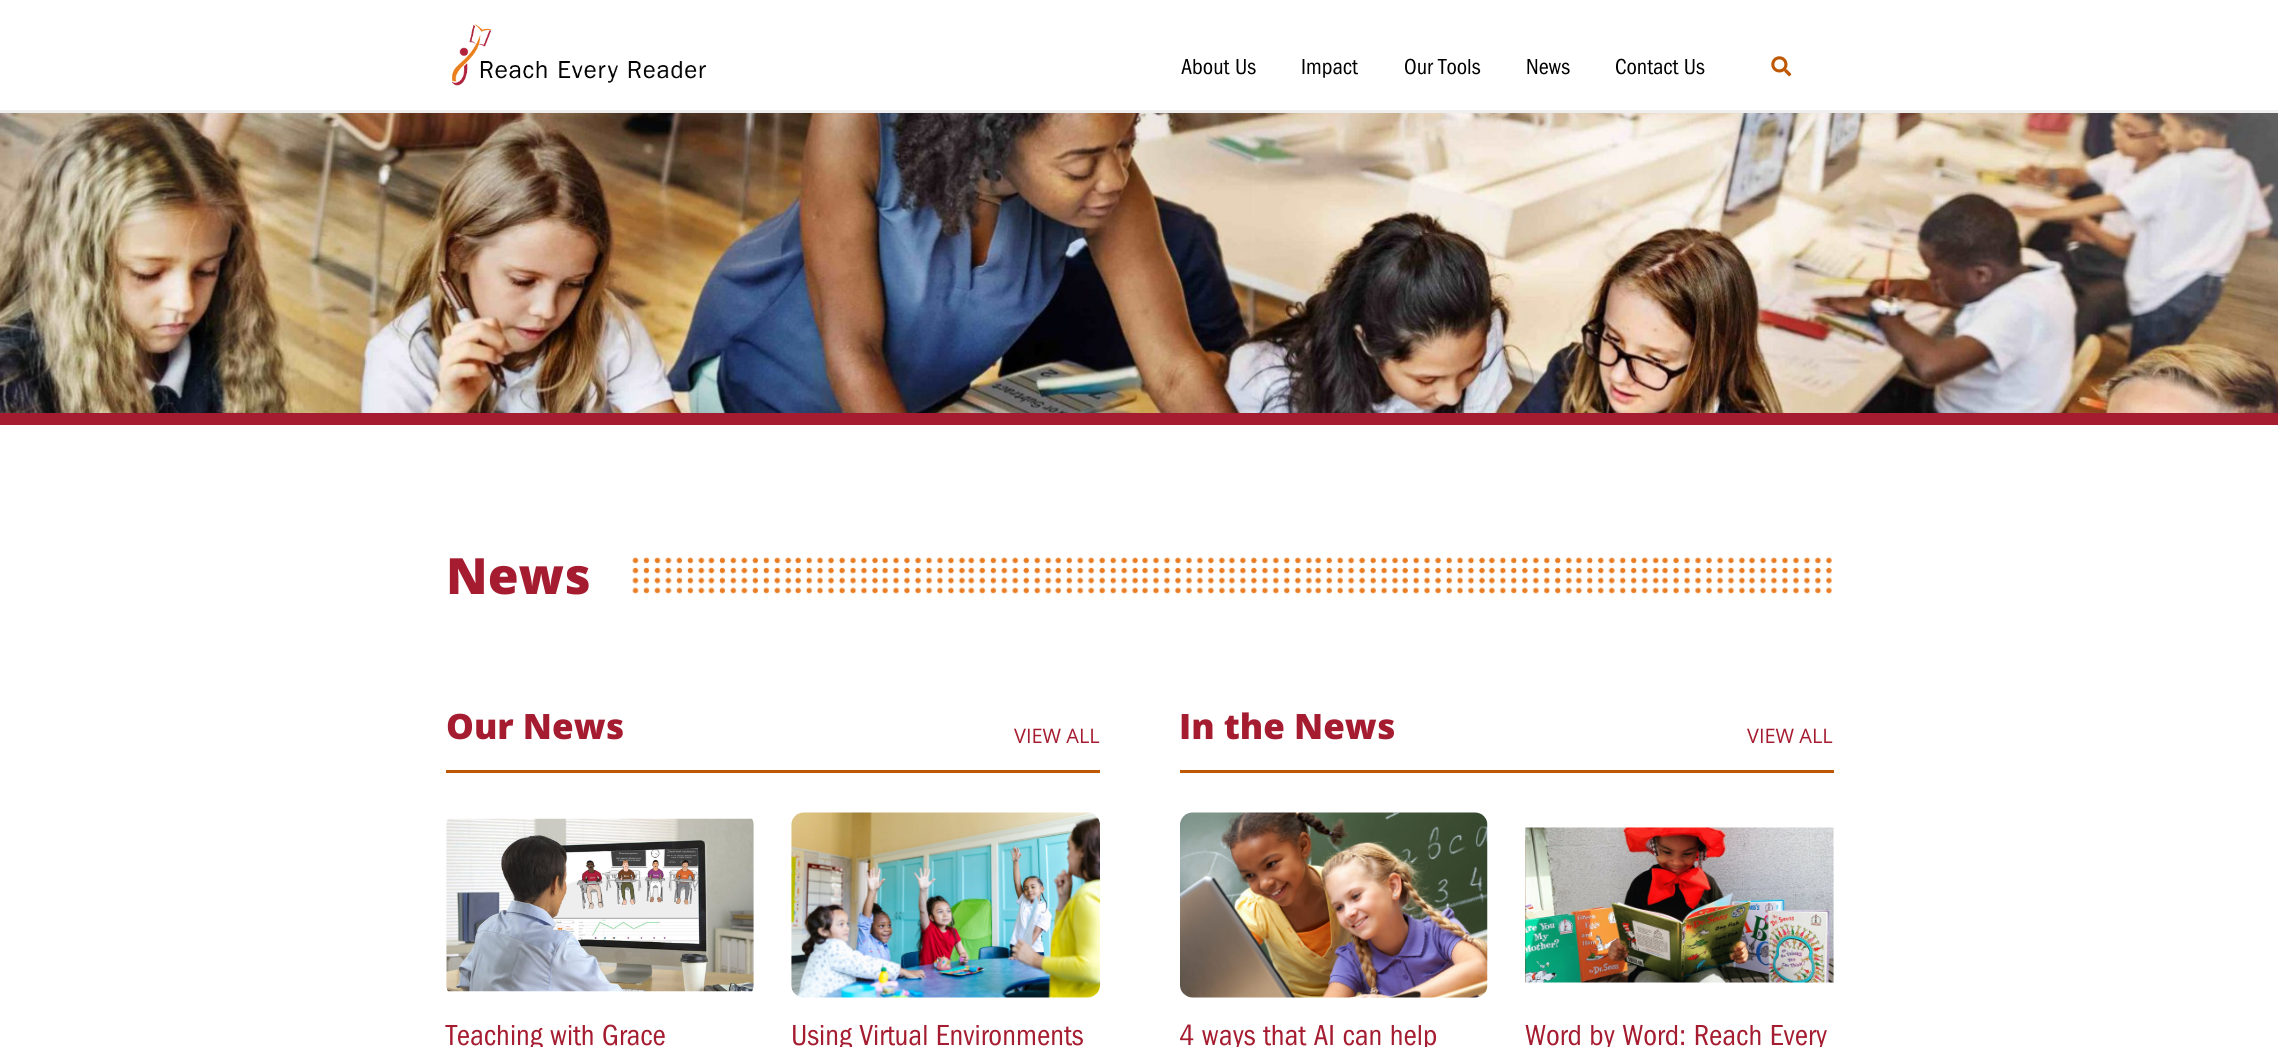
import math
import cairo

surface = cairo.ImageSurface(cairo.FORMAT_RGB24, 2278, 1047)
cr = cairo.Context(surface)
options = cairo.FontOptions()
options.set_hint_metrics(cairo.HINT_METRICS_OFF)
options.set_hint_style(cairo.HINT_STYLE_NONE)
cr.set_font_options(options)
cr.set_miter_limit(4)


def rgb(code):
    cr.set_source_rgb(*(v / 255 for v in bytes.fromhex(code[-6:])))


def image(path, x, y, w, h):
    cr.save()
    cr.set_source_surface(cairo.ImageSurface.create_from_png(path), x, y)
    cr.rectangle(x, y, w, h)
    cr.fill()
    cr.restore()


rgb("#ffffff")
cr.paint()
rgb("#eeeeee")
cr.rectangle(0, 110, 2278, 3)
cr.fill()
image("img/1.png", 451, 24, 255, 62)
image("img/2.png", 1771, 56, 21, 21)
image("img/3.png", 0, 113, 2278, 300)
rgb("#a51c30")
cr.rectangle(0, 413, 2278, 12)
cr.fill()
image("img/4.png", 632, 557, 1200, 37)
rgb("#be5802")
cr.rectangle(446, 770, 654, 3)
cr.fill()
image("img/5.png", 446, 818, 308, 174)
image("img/6.png", 791, 812, 309, 186)
cr.rectangle(1180, 770, 654, 3)
cr.fill()
image("img/7.png", 1180, 812, 308, 186)
image("img/8.png", 1525, 827, 309, 156)
cr.select_font_face("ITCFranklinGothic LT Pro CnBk")
cr.set_font_size(22.5)
rgb("#000000")
for x, y, s in [
    (1181, 74, "About Us"),
    (1301, 74, "Impact"),
    (1404, 74, "Our Tools"),
    (1526, 74, "News"),
    (1615, 74, "Contact Us"),
]:
    cr.move_to(x, y)
    cr.show_text(s)
cr.select_font_face("Open Sans ExtraBold")
cr.set_font_size(50)
rgb("#a51c30")
cr.move_to(446, 594)
cr.show_text("News")
cr.set_font_size(35)
cr.move_to(446, 739)
cr.show_text("Our News")
cr.select_font_face("Open Sans")
cr.set_font_size(20)
cr.move_to(1014, 743)
cr.show_text("VIEW ALL")
cr.select_font_face("ITCFranklinGothic LT Pro CnBk")
cr.set_font_size(30)
cr.move_to(446, 1045)
cr.show_text("Teaching with Grace")
cr.move_to(791, 1045)
cr.show_text("Using Virtual Environments")
cr.select_font_face("Open Sans ExtraBold")
cr.set_font_size(35)
cr.move_to(1179, 739)
cr.show_text("In the News")
cr.select_font_face("Open Sans")
cr.set_font_size(20)
cr.move_to(1747, 743)
cr.show_text("VIEW ALL")
cr.select_font_face("ITCFranklinGothic LT Pro CnBk")
cr.set_font_size(30)
cr.move_to(1179, 1045)
cr.show_text("4 ways that AI can help")
cr.move_to(1525, 1045)
cr.show_text("Word by Word: Reach Every")
surface.write_to_png("page.png")
